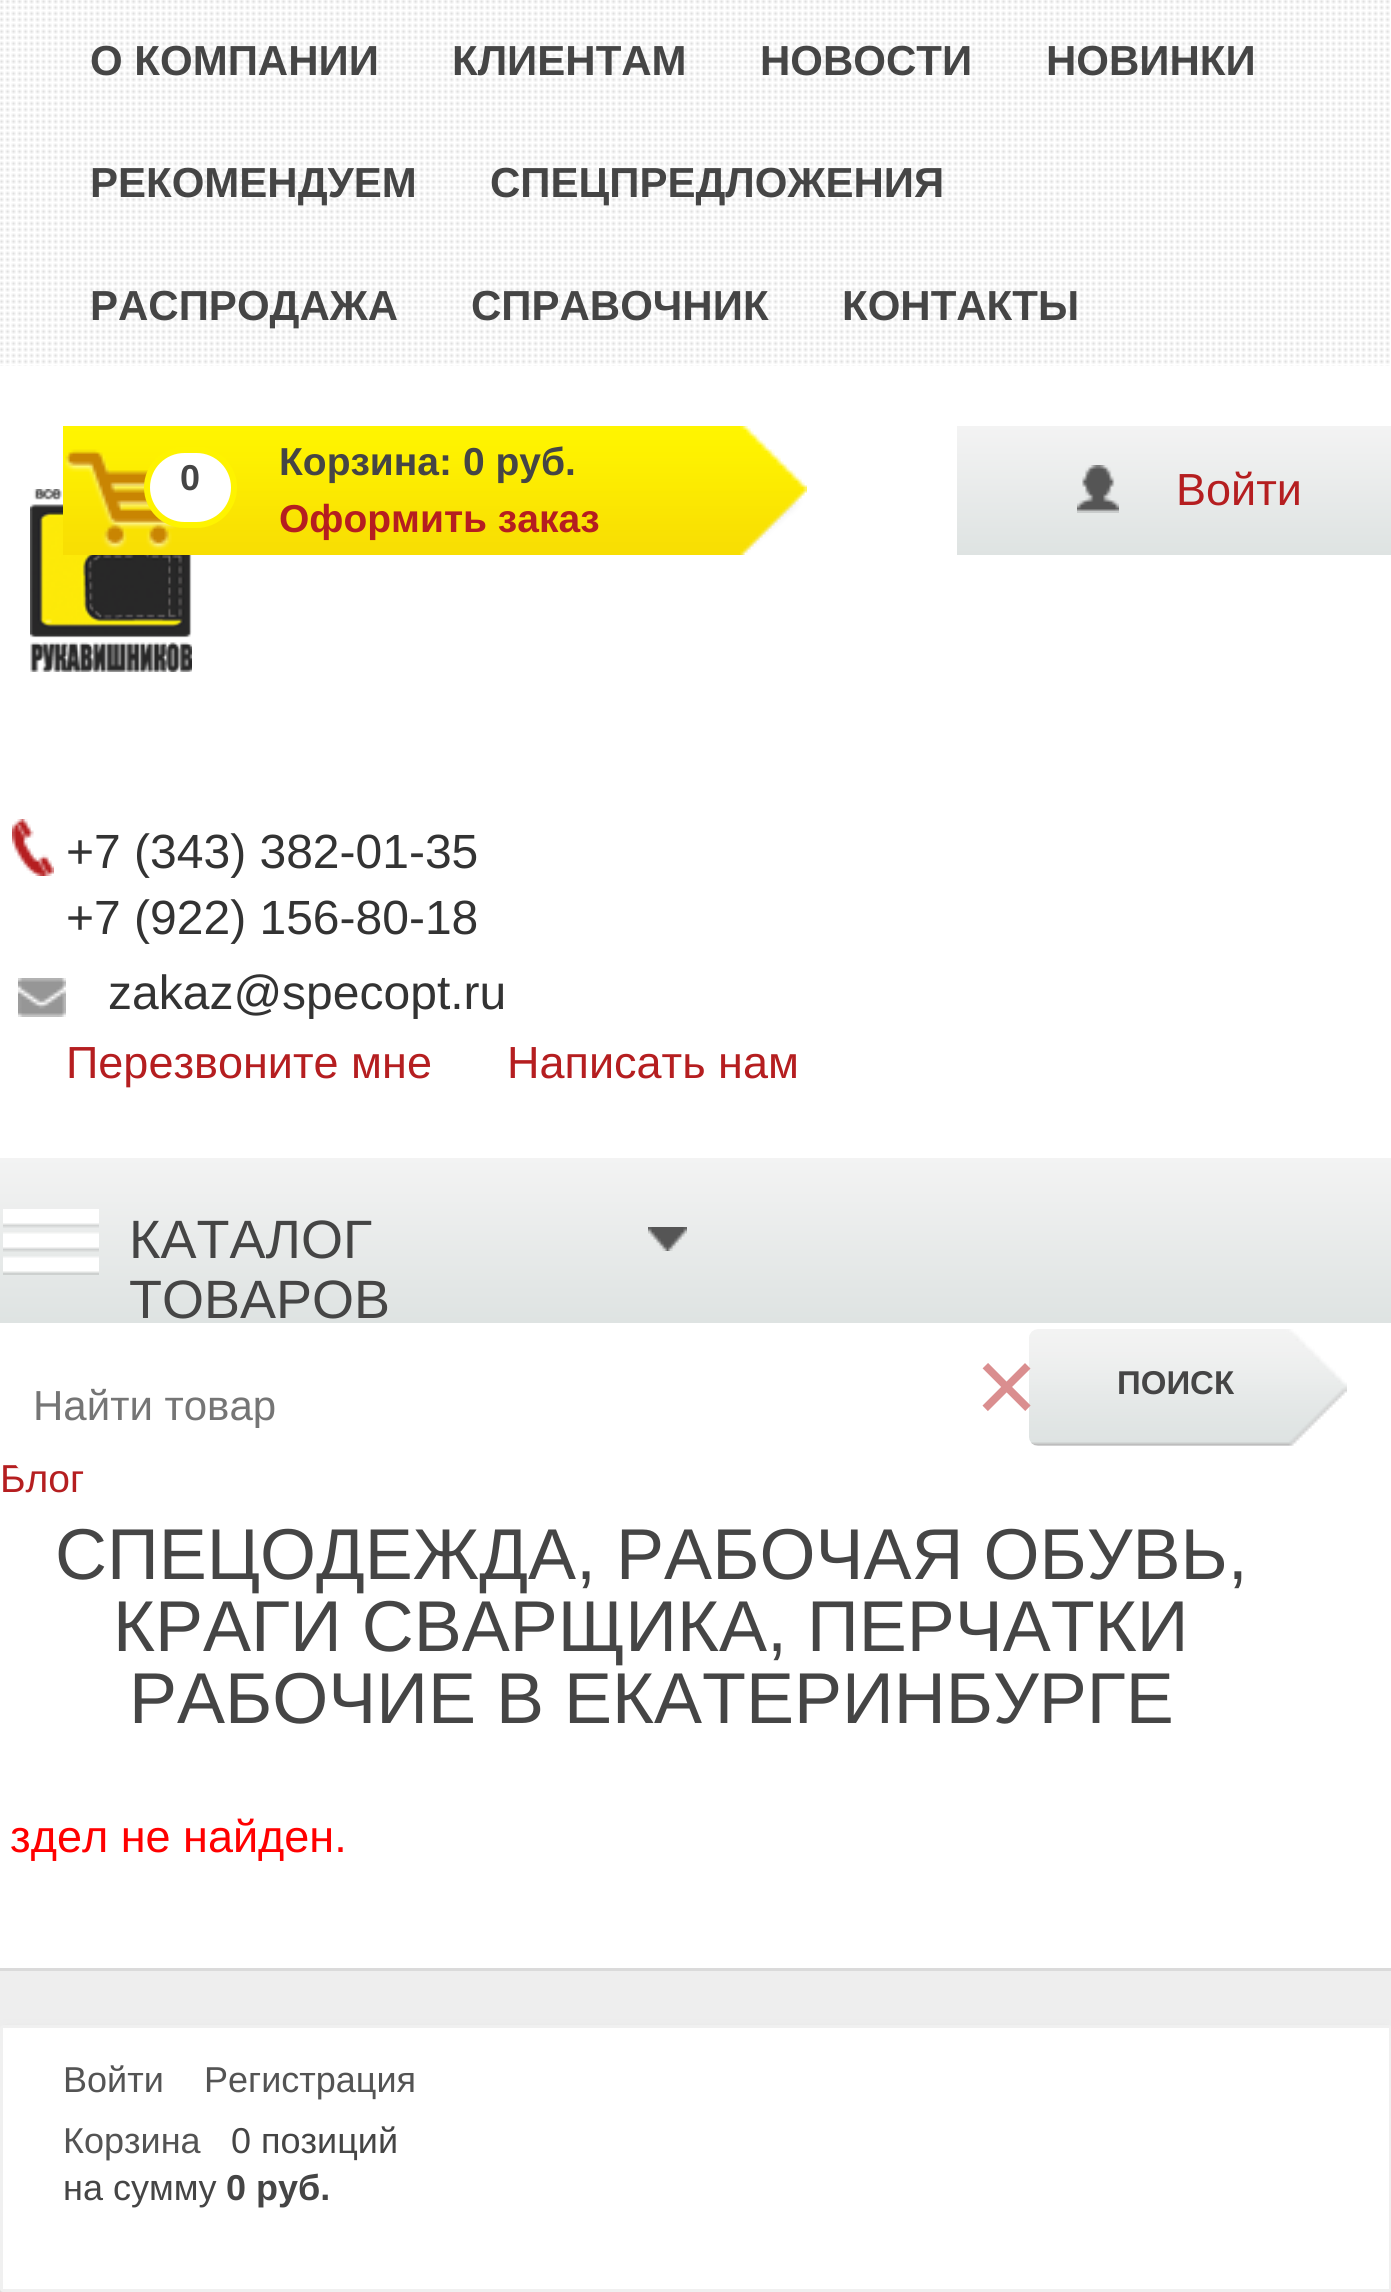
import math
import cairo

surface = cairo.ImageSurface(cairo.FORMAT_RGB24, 1391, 2292)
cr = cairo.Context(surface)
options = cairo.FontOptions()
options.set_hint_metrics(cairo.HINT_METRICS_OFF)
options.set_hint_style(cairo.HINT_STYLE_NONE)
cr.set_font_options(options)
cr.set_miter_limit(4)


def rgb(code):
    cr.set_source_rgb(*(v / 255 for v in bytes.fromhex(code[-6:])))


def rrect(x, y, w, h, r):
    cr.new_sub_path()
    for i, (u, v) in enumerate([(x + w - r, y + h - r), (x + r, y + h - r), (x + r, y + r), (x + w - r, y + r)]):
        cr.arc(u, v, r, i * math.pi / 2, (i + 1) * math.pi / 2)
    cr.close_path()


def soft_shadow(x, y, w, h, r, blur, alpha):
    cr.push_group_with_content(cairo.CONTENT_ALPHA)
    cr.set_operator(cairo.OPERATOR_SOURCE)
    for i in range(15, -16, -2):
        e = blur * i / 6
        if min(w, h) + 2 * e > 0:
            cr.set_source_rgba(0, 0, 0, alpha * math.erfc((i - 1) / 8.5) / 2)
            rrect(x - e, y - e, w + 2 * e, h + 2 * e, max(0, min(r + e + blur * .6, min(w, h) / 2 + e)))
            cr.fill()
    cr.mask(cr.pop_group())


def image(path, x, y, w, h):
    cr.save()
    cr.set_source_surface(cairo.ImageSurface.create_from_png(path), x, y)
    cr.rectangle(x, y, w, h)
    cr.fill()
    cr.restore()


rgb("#ffffff")
cr.paint()
image("img/1.png", 0, 0, 1390, 366)
image("img/2.png", 30, 489, 162, 183)
image("img/3.png", 63, 426, 744, 129)
rgb("#ffffff")
rrect(147, 450, 87, 75, 37.5)
cr.fill_preserve()
rgb("#fef300")
cr.set_line_width(6)
cr.stroke()
gradient = cairo.LinearGradient(1175, 426, 1175, 555)
gradient.add_color_stop_rgba(0, 0.953, 0.953, 0.953, 1)
gradient.add_color_stop_rgba(1, 0.871, 0.89, 0.886, 1)
cr.set_source(gradient)
cr.rectangle(957, 426, 434, 129)
cr.fill()
image("img/4.png", 1077, 465, 42, 48)
image("img/5.png", 12, 819, 42, 57)
image("img/6.png", 18, 978, 48, 39)
gradient = cairo.LinearGradient(674, 1158, 674, 1323)
gradient.add_color_stop_rgba(0, 0.953, 0.953, 0.953, 1)
gradient.add_color_stop_rgba(1, 0.871, 0.89, 0.886, 1)
cr.set_source(gradient)
cr.rectangle(0, 1158, 1391, 165)
cr.fill()
image("img/7.png", 3, 1209, 684, 66)
rgb("#eeeeee")
cr.rectangle(0, 1971, 1391, 321)
cr.fill()
rgb("#dadada")
cr.rectangle(0, 1968, 1391, 3)
cr.fill()
rgb("#000000")
soft_shadow(0, 2046, 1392, 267, 3, 15, 0.15)
rgb("#ffffff")
rrect(1.5, 2026.5, 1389, 264, 1.5)
cr.fill_preserve()
rgb("#f0f0f0")
cr.set_line_width(3)
cr.stroke()
cr.select_font_face("Liberation Sans", cairo.FONT_SLANT_NORMAL, cairo.FONT_WEIGHT_BOLD)
cr.set_font_size(42)
rgb("#454545")
for x, y, s in [
    (90, 75, "О КОМПАНИИ"),
    (452, 75, "КЛИЕНТАМ"),
    (760, 75, "НОВОСТИ"),
    (1046, 75, "НОВИНКИ"),
    (90, 197, "РЕКОМЕНДУЕМ"),
    (490, 197, "СПЕЦПРЕДЛОЖЕНИЯ"),
    (90, 320, "РАСПРОДАЖА"),
    (471, 320, "СПРАВОЧНИК"),
    (842, 320, "КОНТАКТЫ"),
]:
    cr.move_to(x, y)
    cr.show_text(s)
cr.set_font_size(36)
cr.move_to(180, 490)
cr.show_text("0")
cr.set_font_size(39)
cr.move_to(279, 475)
cr.show_text("Корзина: 0 руб.")
rgb("#b51e20")
cr.move_to(279, 532)
cr.show_text("Оформить заказ")
cr.select_font_face("Liberation Sans")
cr.set_font_size(45)
cr.move_to(1176, 505)
cr.show_text("Войти")
cr.set_font_size(48)
rgb("#333333")
for x, y, s in [
    (66, 868, "+7 (343) 382-01-35"),
    (66, 934, "+7 (922) 156-80-18"),
    (108, 1009, "zakaz@specopt.ru"),
]:
    cr.move_to(x, y)
    cr.show_text(s)
cr.set_font_size(45)
rgb("#b51e20")
cr.move_to(66, 1078)
cr.show_text("Перезвоните мне")
cr.move_to(507, 1078)
cr.show_text("Написать нам")
cr.set_font_size(54)
rgb("#454545")
cr.move_to(129, 1258)
cr.show_text("КАТАЛОГ")
cr.move_to(129, 1318)
cr.show_text("ТОВАРОВ")
cr.set_font_size(39)
rgb("#b51e20")
cr.move_to(0, 1492)
cr.show_text("Блог")
rgb("#ffffff")
rrect(15, 1338, 1050, 132, 9)
cr.fill()
image("img/8.png", 1029, 1329, 318, 117)
cr.set_font_size(108)
rgb("#da8e8f")
cr.move_to(975, 1423)
cr.show_text("×")
cr.select_font_face("Liberation Sans", cairo.FONT_SLANT_NORMAL, cairo.FONT_WEIGHT_BOLD)
cr.set_font_size(33)
rgb("#454545")
cr.move_to(1117, 1394)
cr.show_text("ПОИСК")
cr.save()
cr.rectangle(33, 1380, 1014, 48)
cr.clip()
cr.select_font_face("Liberation Sans")
cr.set_font_size(42)
rgb("#757575")
cr.move_to(33, 1420)
cr.show_text("Найти товар")
cr.restore()
cr.select_font_face("Liberation Sans")
cr.set_font_size(72)
for x, y, s in [
    (55, 1579, "СПЕЦОДЕЖДА, РАБОЧАЯ ОБУВЬ,"),
    (113, 1651, "КРАГИ СВАРЩИКА, ПЕРЧАТКИ"),
    (129, 1723, "РАБОЧИЕ В ЕКАТЕРИНБУРГЕ"),
]:
    cr.move_to(x, y)
    cr.show_text(s)
cr.set_font_size(45)
rgb("#ff0000")
cr.move_to(10, 1852)
cr.show_text("здел не найден.")
cr.set_font_size(36)
rgb("#545454")
for x, y, s in [
    (63, 2092, "Войти"),
    (204, 2092, "Регистрация"),
    (63, 2153, "Корзина"),
]:
    cr.move_to(x, y)
    cr.show_text(s)
rgb("#454545")
cr.move_to(231, 2153)
cr.show_text("0 позиций")
cr.move_to(63, 2200)
cr.show_text("на сумму")
cr.select_font_face("Liberation Sans", cairo.FONT_SLANT_NORMAL, cairo.FONT_WEIGHT_BOLD)
cr.move_to(226, 2200)
cr.show_text("0 руб.")
surface.write_to_png("page.png")
